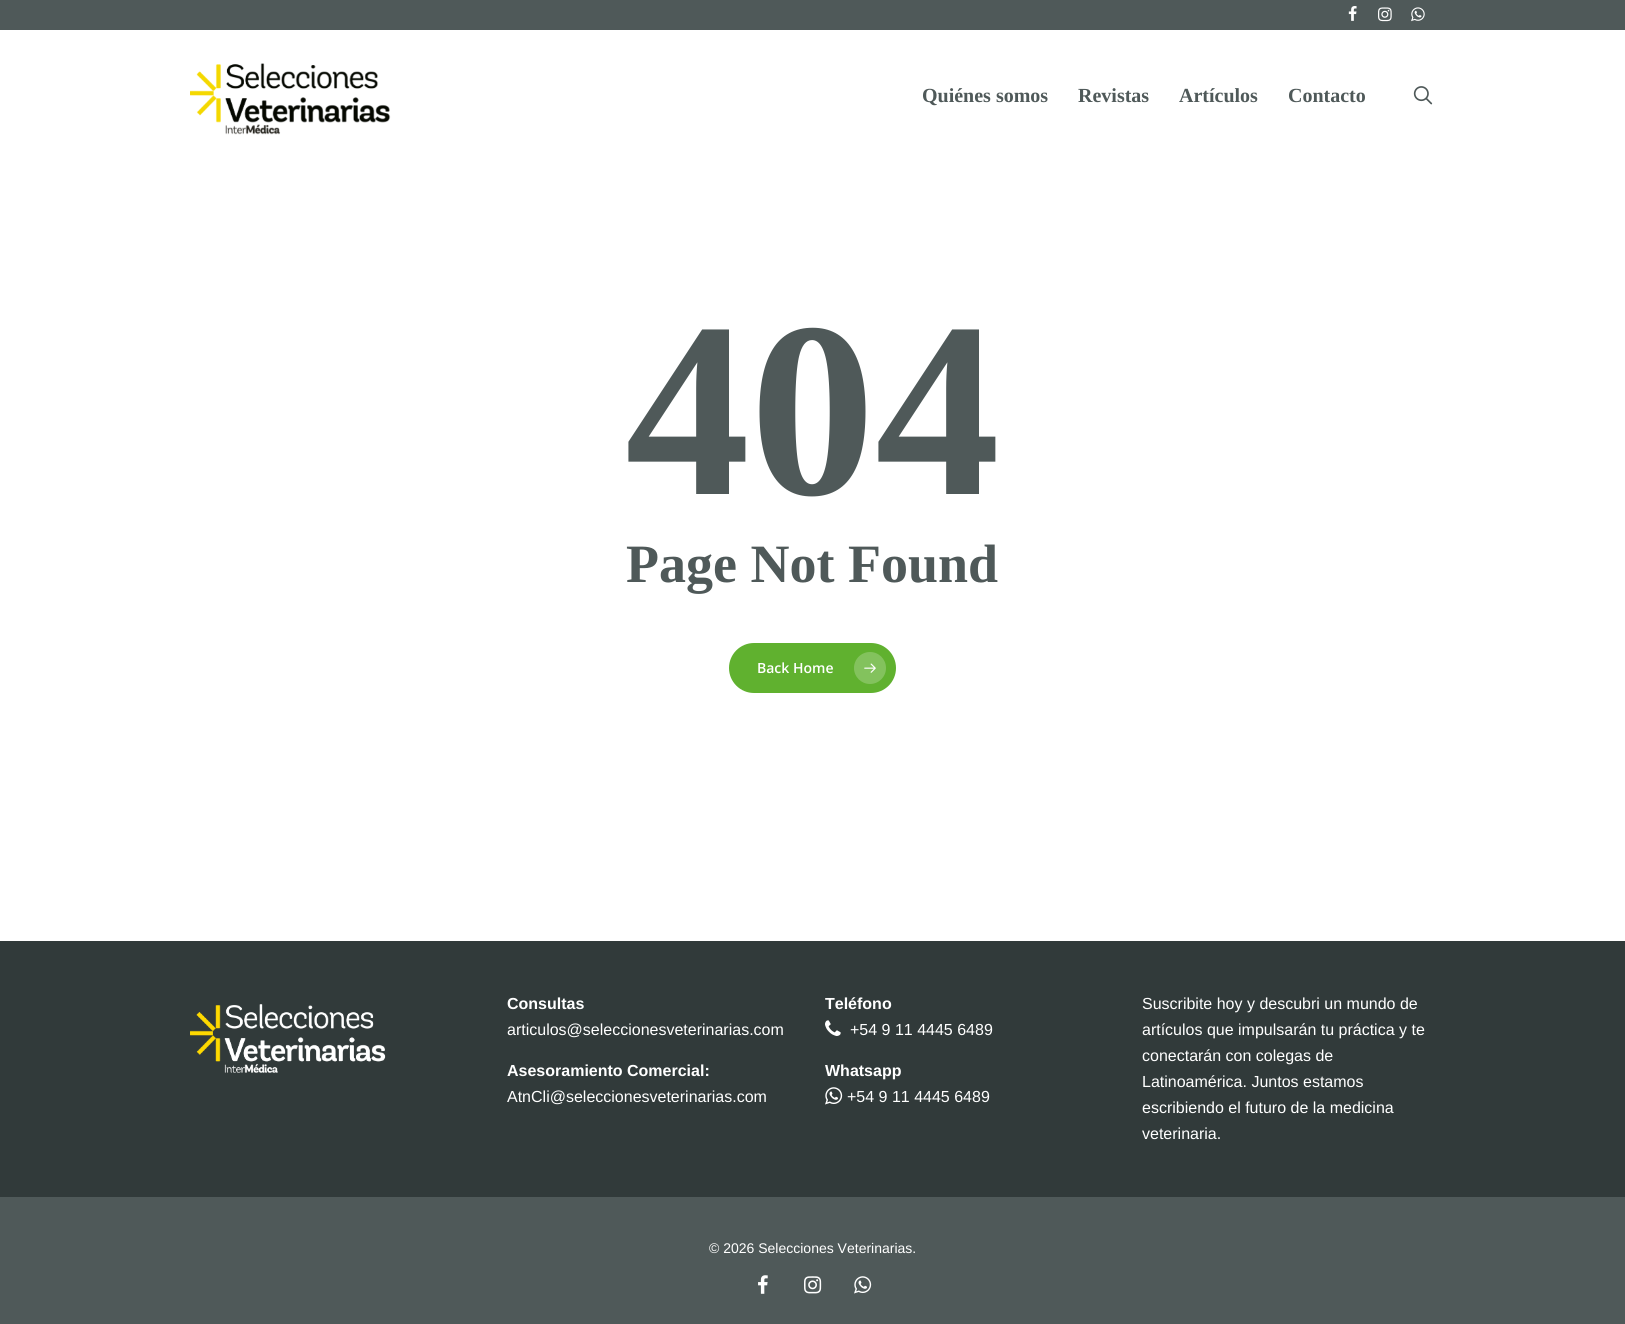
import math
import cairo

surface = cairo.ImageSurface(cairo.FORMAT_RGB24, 1625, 1324)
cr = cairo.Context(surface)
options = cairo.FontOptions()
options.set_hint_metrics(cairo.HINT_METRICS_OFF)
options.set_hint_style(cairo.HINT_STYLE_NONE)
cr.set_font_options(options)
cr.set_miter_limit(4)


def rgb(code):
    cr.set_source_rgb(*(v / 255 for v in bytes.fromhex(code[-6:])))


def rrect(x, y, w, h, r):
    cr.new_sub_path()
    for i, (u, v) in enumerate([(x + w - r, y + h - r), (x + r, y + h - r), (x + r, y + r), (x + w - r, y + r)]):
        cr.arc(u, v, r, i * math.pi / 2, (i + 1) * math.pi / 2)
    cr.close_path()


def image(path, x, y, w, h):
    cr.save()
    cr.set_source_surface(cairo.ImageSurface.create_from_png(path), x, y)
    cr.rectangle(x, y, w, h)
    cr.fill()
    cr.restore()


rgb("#ffffff")
cr.paint()
rgb("#4f5959")
cr.rectangle(0, 0, 1625, 30)
cr.fill()
image("img/1.png", 1348, 6, 9, 15)
image("img/2.png", 1378, 7, 14, 15)
image("img/3.png", 1411, 7, 14, 15)
image("img/4.png", 190, 63, 201, 72)
image("img/5.png", 1413, 86, 20, 19)
rgb("#60b12f")
rrect(729, 643, 167, 50, 25)
cr.fill()
rgb("#83c25d")
cr.arc(870, 668, 16, 0, 2 * math.pi)
cr.fill()
image("img/6.png", 864, 663, 12, 10)
rgb("#313a3a")
cr.rectangle(0, 941, 1625, 256)
cr.fill()
image("img/7.png", 190, 1004, 196, 69)
image("img/8.png", 825, 1020, 16, 16)
image("img/9.png", 825, 1087, 18, 18)
rgb("#4f5959")
cr.rectangle(0, 1197, 1625, 127)
cr.fill()
image("img/10.png", 758, 1275, 10, 19)
image("img/11.png", 804, 1276, 18, 18)
image("img/12.png", 854, 1276, 18, 18)
cr.select_font_face("Liberation Serif", cairo.FONT_SLANT_NORMAL, cairo.FONT_WEIGHT_BOLD)
cr.set_font_size(20)
for x, y, s in [
    (922, 102, "Quiénes somos"),
    (1078, 102, "Revistas"),
    (1179, 102, "Artículos"),
    (1288, 102, "Contacto"),
]:
    cr.move_to(x, y)
    cr.show_text(s)
cr.set_font_size(250)
cr.move_to(625, 494)
cr.show_text("404")
cr.set_font_size(54)
cr.move_to(626, 582)
cr.show_text("Page Not Found")
cr.select_font_face("Open Sans SemiBold")
cr.set_font_size(14)
rgb("#ffffff")
cr.move_to(757, 673)
cr.show_text("Back Home")
cr.select_font_face("Liberation Sans", cairo.FONT_SLANT_NORMAL, cairo.FONT_WEIGHT_BOLD)
cr.set_font_size(16)
cr.move_to(507, 1009)
cr.show_text("Consultas")
cr.select_font_face("Liberation Sans")
cr.move_to(507, 1035)
cr.show_text("articulos@seleccionesveterinarias.com")
cr.select_font_face("Liberation Sans", cairo.FONT_SLANT_NORMAL, cairo.FONT_WEIGHT_BOLD)
cr.move_to(507, 1076)
cr.show_text("Asesoramiento Comercial:")
cr.select_font_face("Liberation Sans")
cr.move_to(507, 1102)
cr.show_text("AtnCli@seleccionesveterinarias.com")
cr.select_font_face("Liberation Sans", cairo.FONT_SLANT_NORMAL, cairo.FONT_WEIGHT_BOLD)
cr.move_to(825, 1009)
cr.show_text("Teléfono")
cr.select_font_face("Liberation Sans")
cr.move_to(850, 1035)
cr.show_text("+54 9 11 4445 6489")
cr.select_font_face("Liberation Sans", cairo.FONT_SLANT_NORMAL, cairo.FONT_WEIGHT_BOLD)
cr.move_to(825, 1076)
cr.show_text("Whatsapp")
cr.select_font_face("Liberation Sans")
for x, y, s in [
    (847, 1102, "+54 9 11 4445 6489"),
    (1142, 1009, "Suscribite hoy y descubri un mundo de"),
    (1142, 1035, "artículos que impulsarán tu práctica y te"),
    (1142, 1061, "conectarán con colegas de"),
    (1142, 1087, "Latinoamérica. Juntos estamos"),
    (1142, 1113, "escribiendo el futuro de la medicina"),
    (1142, 1139, "veterinaria."),
]:
    cr.move_to(x, y)
    cr.show_text(s)
cr.set_font_size(14)
cr.move_to(709, 1253)
cr.show_text("© 2026 Selecciones Veterinarias.")
surface.write_to_png("page.png")
